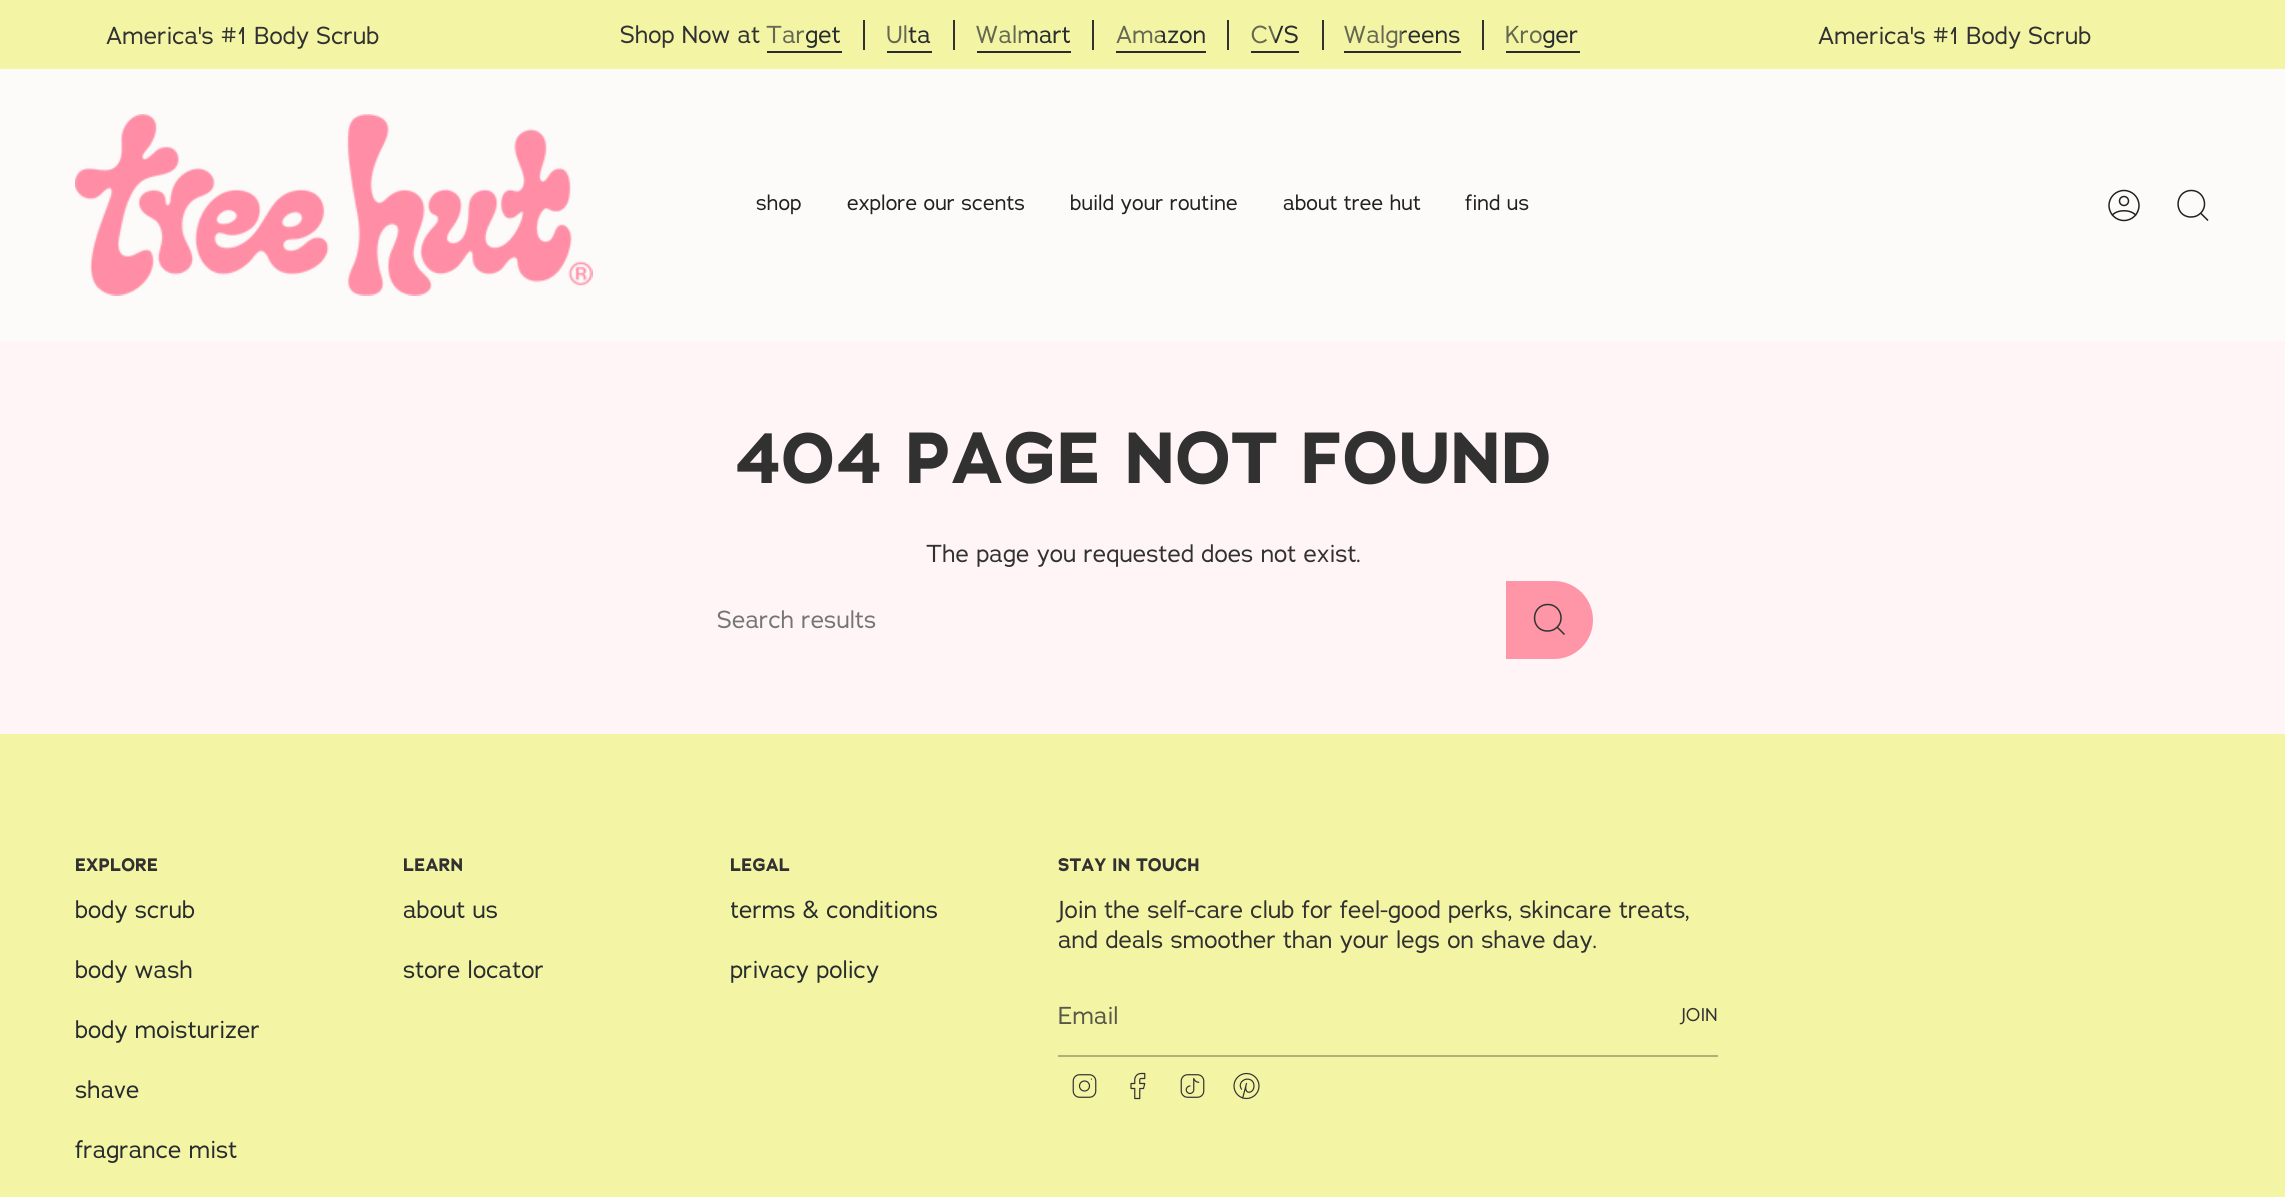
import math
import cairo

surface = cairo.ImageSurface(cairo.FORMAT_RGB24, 2285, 1197)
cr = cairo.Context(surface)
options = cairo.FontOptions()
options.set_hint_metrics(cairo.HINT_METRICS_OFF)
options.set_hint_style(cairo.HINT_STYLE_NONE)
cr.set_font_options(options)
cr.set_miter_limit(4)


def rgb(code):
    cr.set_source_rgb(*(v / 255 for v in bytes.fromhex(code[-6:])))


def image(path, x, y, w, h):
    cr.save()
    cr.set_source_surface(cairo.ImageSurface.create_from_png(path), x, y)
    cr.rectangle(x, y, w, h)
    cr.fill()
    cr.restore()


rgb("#fff4f6")
cr.paint()
for x, y, w, h, color in [
    (0, 0, 2285, 69, "#f3f5a5"),
    (767, 51, 75, 2, "#282c2e"),
    (863, 20, 2, 30, "#313131"),
    (887, 51, 45, 2, "#282c2e"),
    (953, 20, 2, 30, "#313131"),
    (977, 51, 94, 2, "#282c2e"),
    (1092, 20, 2, 30, "#313131"),
    (1116, 51, 90, 2, "#282c2e"),
    (1227, 20, 2, 30, "#313131"),
    (1251, 51, 48, 2, "#282c2e"),
    (1322, 20, 2, 30, "#313131"),
    (1344, 51, 117, 2, "#282c2e"),
    (1482, 20, 2, 30, "#313131"),
    (1506, 51, 74, 2, "#282c2e"),
    (0, 69, 2285, 272, "#fcfbf9"),
]:
    rgb(color)
    cr.rectangle(x, y, w, h)
    cr.fill()
image("img/1.png", 75, 114, 518, 182)
image("img/2.png", 2108, 189, 32, 33)
cr.new_path()
cr.move_to(2191.5, 190.5)
cr.curve_to(2204, 190.5, 2209.5, 207, 2199, 214.5)
cr.curve_to(2196.5, 216.5, 2193.5, 217, 2190.5, 217)
cr.curve_to(2173.5, 216.5, 2174, 190.5, 2191.5, 190.5)
cr.close_path()
cr.move_to(2200.5, 213)
cr.line_to(2208, 220.5)
rgb("#212121")
cr.set_line_width(1.5)
cr.stroke()
rgb("#fe96a8")
cr.new_path()
cr.move_to(1507, 582)
cr.line_to(1554, 582)
cr.curve_to(1575, 582, 1592, 599, 1592, 620)
cr.curve_to(1592, 641, 1575, 658, 1554, 658)
cr.line_to(1507, 658)
cr.close_path()
cr.fill_preserve()
cr.set_line_width(2)
cr.stroke()
cr.new_path()
cr.move_to(1548, 604.5)
cr.curve_to(1560.5, 604.5, 1566, 621, 1555.5, 628.5)
cr.curve_to(1553, 630.5, 1550, 631, 1547, 631)
cr.curve_to(1530, 630.5, 1530.5, 604.5, 1548, 604.5)
cr.close_path()
cr.move_to(1557, 627)
cr.line_to(1564.5, 634.5)
rgb("#313131")
cr.set_line_width(1.5)
cr.stroke()
rgb("#f3f5a5")
cr.rectangle(0, 734, 2285, 463)
cr.fill()
rgb("#afb07c")
cr.rectangle(1058, 1055, 660, 2)
cr.fill()
image("img/3.png", 1072, 1074, 25, 24)
image("img/4.png", 1130, 1072, 16, 28)
image("img/5.png", 1180, 1074, 25, 24)
image("img/6.png", 1233, 1072, 27, 28)
cr.select_font_face("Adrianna")
cr.set_font_size(24)
rgb("#313131")
cr.move_to(106, 44)
cr.show_text("America's #1 Body Scrub")
cr.move_to(620, 43)
cr.show_text("Shop Now at")
gradient = cairo.LinearGradient(766, 35, 841, 35)
gradient.add_color_stop_rgba(0, 0.396, 0.408, 0.322, 1)
gradient.add_color_stop_rgba(0.5, 0.396, 0.408, 0.322, 1)
gradient.add_color_stop_rgba(0.5, 0.157, 0.173, 0.18, 1)
gradient.add_color_stop_rgba(1, 0.157, 0.173, 0.18, 1)
cr.set_source(gradient)
cr.move_to(766, 43)
cr.show_text("Target")
gradient = cairo.LinearGradient(886, 35, 931, 35)
gradient.add_color_stop_rgba(0, 0.396, 0.408, 0.322, 1)
gradient.add_color_stop_rgba(0.5, 0.396, 0.408, 0.322, 1)
gradient.add_color_stop_rgba(0.5, 0.157, 0.173, 0.18, 1)
gradient.add_color_stop_rgba(1, 0.157, 0.173, 0.18, 1)
cr.set_source(gradient)
cr.move_to(886, 43)
cr.show_text("Ulta")
gradient = cairo.LinearGradient(976, 35, 1071, 35)
gradient.add_color_stop_rgba(0, 0.396, 0.408, 0.322, 1)
gradient.add_color_stop_rgba(0.5, 0.396, 0.408, 0.322, 1)
gradient.add_color_stop_rgba(0.5, 0.157, 0.173, 0.18, 1)
gradient.add_color_stop_rgba(1, 0.157, 0.173, 0.18, 1)
cr.set_source(gradient)
cr.move_to(976, 43)
cr.show_text("Walmart")
gradient = cairo.LinearGradient(1116, 35, 1206, 35)
gradient.add_color_stop_rgba(0, 0.396, 0.408, 0.322, 1)
gradient.add_color_stop_rgba(0.5, 0.396, 0.408, 0.322, 1)
gradient.add_color_stop_rgba(0.5, 0.157, 0.173, 0.18, 1)
gradient.add_color_stop_rgba(1, 0.157, 0.173, 0.18, 1)
cr.set_source(gradient)
cr.move_to(1116, 43)
cr.show_text("Amazon")
gradient = cairo.LinearGradient(1251, 35, 1299, 35)
gradient.add_color_stop_rgba(0, 0.396, 0.408, 0.322, 1)
gradient.add_color_stop_rgba(0.5, 0.396, 0.408, 0.322, 1)
gradient.add_color_stop_rgba(0.5, 0.157, 0.173, 0.18, 1)
gradient.add_color_stop_rgba(1, 0.157, 0.173, 0.18, 1)
cr.set_source(gradient)
cr.move_to(1251, 43)
cr.show_text("CVS")
gradient = cairo.LinearGradient(1344, 35, 1460, 35)
gradient.add_color_stop_rgba(0, 0.396, 0.408, 0.322, 1)
gradient.add_color_stop_rgba(0.5, 0.396, 0.408, 0.322, 1)
gradient.add_color_stop_rgba(0.5, 0.157, 0.173, 0.18, 1)
gradient.add_color_stop_rgba(1, 0.157, 0.173, 0.18, 1)
cr.set_source(gradient)
cr.move_to(1344, 43)
cr.show_text("Walgreens")
gradient = cairo.LinearGradient(1505, 35, 1578, 35)
gradient.add_color_stop_rgba(0, 0.396, 0.408, 0.322, 1)
gradient.add_color_stop_rgba(0.5, 0.396, 0.408, 0.322, 1)
gradient.add_color_stop_rgba(0.5, 0.157, 0.173, 0.18, 1)
gradient.add_color_stop_rgba(1, 0.157, 0.173, 0.18, 1)
cr.set_source(gradient)
cr.move_to(1505, 43)
cr.show_text("Kroger")
rgb("#313131")
cr.move_to(1818, 44)
cr.show_text("America's #1 Body Scrub")
cr.set_font_size(21)
rgb("#212121")
for x, y, s in [
    (756, 210, "shop"),
    (847, 210, "explore our scents"),
    (1070, 210, "build your routine"),
    (1283, 210, "about tree hut"),
    (1465, 210, "find us"),
]:
    cr.move_to(x, y)
    cr.show_text(s)
cr.select_font_face("Adrianna", cairo.FONT_SLANT_NORMAL, cairo.FONT_WEIGHT_BOLD)
cr.set_font_size(72)
rgb("#313131")
cr.move_to(734, 483)
cr.show_text("404 PAGE NOT FOUND")
cr.select_font_face("Adrianna")
cr.set_font_size(24)
cr.move_to(926, 562)
cr.show_text("The page you requested does not exist.")
rgb("#757575")
cr.move_to(717, 628)
cr.show_text("Search results")
cr.select_font_face("Adrianna", cairo.FONT_SLANT_NORMAL, cairo.FONT_WEIGHT_BOLD)
cr.set_font_size(18)
rgb("#313131")
cr.move_to(75, 871)
cr.show_text("EXPLORE")
cr.select_font_face("Adrianna")
cr.set_font_size(24)
rgb("#282c2e")
for x, y, s in [
    (75, 918, "body scrub"),
    (75, 978, "body wash"),
    (75, 1038, "body moisturizer"),
    (75, 1098, "shave"),
    (75, 1158, "fragrance mist"),
]:
    cr.move_to(x, y)
    cr.show_text(s)
cr.select_font_face("Adrianna", cairo.FONT_SLANT_NORMAL, cairo.FONT_WEIGHT_BOLD)
cr.set_font_size(18)
rgb("#313131")
cr.move_to(403, 871)
cr.show_text("LEARN")
cr.select_font_face("Adrianna")
cr.set_font_size(24)
rgb("#282c2e")
cr.move_to(403, 918)
cr.show_text("about us")
cr.move_to(403, 978)
cr.show_text("store locator")
cr.select_font_face("Adrianna", cairo.FONT_SLANT_NORMAL, cairo.FONT_WEIGHT_BOLD)
cr.set_font_size(18)
rgb("#313131")
cr.move_to(730, 871)
cr.show_text("LEGAL")
cr.save()
cr.rectangle(731, 894, 279, 117)
cr.clip()
cr.select_font_face("Adrianna")
cr.set_font_size(24)
rgb("#282c2e")
cr.move_to(730, 918)
cr.show_text("terms & conditions")
cr.restore()
cr.select_font_face("Adrianna")
cr.set_font_size(24)
rgb("#282c2e")
cr.move_to(730, 978)
cr.show_text("privacy policy")
cr.select_font_face("Adrianna", cairo.FONT_SLANT_NORMAL, cairo.FONT_WEIGHT_BOLD)
cr.set_font_size(18)
rgb("#313131")
cr.move_to(1058, 871)
cr.show_text("STAY IN TOUCH")
cr.select_font_face("Adrianna")
cr.set_font_size(24)
cr.move_to(1058, 918)
cr.show_text("Join the self-care club for feel-good perks, skincare treats,")
cr.move_to(1058, 948)
cr.show_text("and deals smoother than your legs on shave day.")
rgb("#585848")
cr.move_to(1058, 1024)
cr.show_text("Email")
cr.set_font_size(18)
rgb("#313131")
cr.move_to(1681, 1021)
cr.show_text("JOIN")
surface.write_to_png("page.png")
